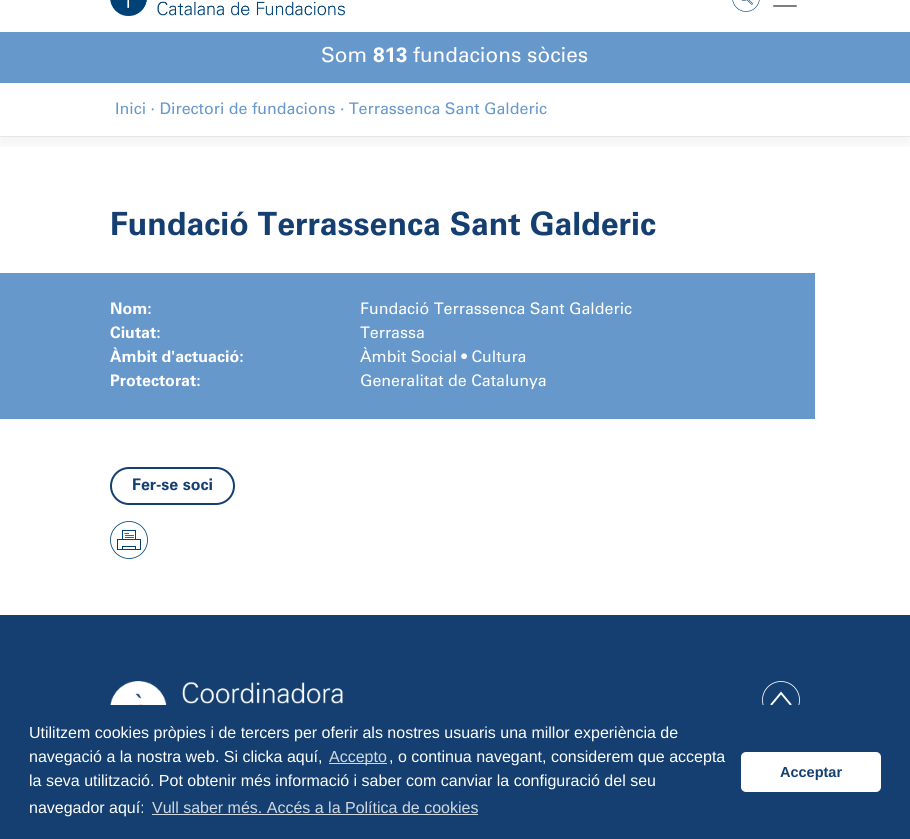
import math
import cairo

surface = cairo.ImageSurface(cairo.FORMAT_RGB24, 910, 839)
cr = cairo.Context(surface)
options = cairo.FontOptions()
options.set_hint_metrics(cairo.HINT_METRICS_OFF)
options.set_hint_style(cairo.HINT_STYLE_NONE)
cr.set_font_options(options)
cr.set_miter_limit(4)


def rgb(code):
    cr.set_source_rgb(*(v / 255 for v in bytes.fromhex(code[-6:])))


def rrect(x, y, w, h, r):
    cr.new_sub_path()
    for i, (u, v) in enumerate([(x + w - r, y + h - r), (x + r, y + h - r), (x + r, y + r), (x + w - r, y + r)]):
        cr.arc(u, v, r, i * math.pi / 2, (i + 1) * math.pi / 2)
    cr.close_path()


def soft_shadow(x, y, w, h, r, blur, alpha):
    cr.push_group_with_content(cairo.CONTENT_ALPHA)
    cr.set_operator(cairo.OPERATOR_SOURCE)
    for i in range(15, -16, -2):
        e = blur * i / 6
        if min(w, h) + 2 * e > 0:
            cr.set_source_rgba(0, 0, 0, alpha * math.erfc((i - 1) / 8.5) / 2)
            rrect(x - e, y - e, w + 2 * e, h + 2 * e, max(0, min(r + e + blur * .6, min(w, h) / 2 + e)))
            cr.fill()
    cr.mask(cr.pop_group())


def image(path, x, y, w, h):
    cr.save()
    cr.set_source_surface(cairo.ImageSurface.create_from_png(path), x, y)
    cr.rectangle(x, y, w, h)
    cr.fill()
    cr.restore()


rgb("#ffffff")
cr.paint()
cr.save()
cr.rectangle(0, 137, 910, 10)
cr.clip()
rgb("#000000")
soft_shadow(0, -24, 910, 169, 0, 8, 0.05)
cr.restore()
rgb("#e6e6e6")
cr.rectangle(0, 136, 910, 1)
cr.fill()
image("img/1.png", 110, 0, 235, 16)
image("img/2.png", 732, 0, 28, 12)
image("img/3.png", 773, 5, 24, 2)
rgb("#6798cc")
cr.rectangle(0, 32, 910, 51)
cr.fill()
cr.rectangle(0, 273, 815, 146)
cr.fill()
rrect(111, 468, 123, 36, 18)
rgb("#143f70")
cr.stroke()
cr.arc(129, 540, 18.5, 0, 2 * math.pi)
rgb("#004274")
cr.set_line_width(0.8)
cr.stroke()
cr.rectangle(122.5, 530.5, 13, 9)
cr.set_line_width(1)
cr.stroke()
cr.new_path()
cr.move_to(124.5, 533.5)
cr.line_to(129, 533.5)
cr.set_line_width(0.8)
cr.stroke()
rgb("#336890")
cr.rectangle(125, 535, 9, 1)
cr.fill()
cr.rectangle(125, 537, 9, 1)
cr.fill()
cr.rectangle(117.5, 539.5, 23, 10)
rgb("#004274")
cr.set_line_width(1)
cr.stroke()
cr.rectangle(122.5, 546.5, 13, 3)
cr.stroke()
rgb("#143f70")
cr.rectangle(0, 615, 910, 90)
cr.fill()
image("img/4.png", 110, 681, 233, 24)
cr.arc(781, 700, 18.5, 0, 2 * math.pi)
rgb("#ffffff")
cr.set_line_width(0.8)
cr.stroke()
cr.new_path()
cr.move_to(771, 705)
cr.line_to(781, 693)
cr.line_to(791, 705)
cr.set_line_width(1.9)
cr.stroke()
for x, y, w, h, color in [
    (0, 705, 910, 134, "#143f70"),
    (329, 763, 58, 1, "#d0d9e2"),
    (152, 814, 326, 1, "#d0d9e2"),
]:
    rgb(color)
    cr.rectangle(x, y, w, h)
    cr.fill()
rgb("#ffffff")
rrect(741, 752, 140, 40, 5)
cr.fill()
cr.select_font_face("Univers")
cr.set_font_size(20.75)
cr.move_to(321, 62)
cr.show_text("Som")
cr.select_font_face("Univers", cairo.FONT_SLANT_NORMAL, cairo.FONT_WEIGHT_BOLD)
cr.move_to(373, 62)
cr.show_text("813")
cr.select_font_face("Univers")
cr.move_to(413, 62)
cr.show_text("fundacions sòcies")
cr.set_font_size(16)
rgb("#6798cc")
cr.move_to(115, 114)
cr.show_text("Inici · Directori de fundacions · Terrassenca Sant Galderic")
cr.select_font_face("Univers", cairo.FONT_SLANT_NORMAL, cairo.FONT_WEIGHT_BOLD)
cr.set_font_size(32)
rgb("#143f70")
cr.move_to(110, 235)
cr.show_text("Fundació Terrassenca Sant Galderic")
cr.set_font_size(16)
rgb("#ffffff")
cr.move_to(110, 314)
cr.show_text("Nom:")
cr.select_font_face("Univers")
cr.move_to(360, 314)
cr.show_text("Fundació Terrassenca Sant Galderic")
cr.select_font_face("Univers", cairo.FONT_SLANT_NORMAL, cairo.FONT_WEIGHT_BOLD)
cr.move_to(110, 338)
cr.show_text("Ciutat:")
cr.select_font_face("Univers")
cr.move_to(360, 338)
cr.show_text("Terrassa")
cr.select_font_face("Univers", cairo.FONT_SLANT_NORMAL, cairo.FONT_WEIGHT_BOLD)
cr.move_to(110, 362)
cr.show_text("Àmbit d'actuació:")
cr.select_font_face("Univers")
cr.move_to(360, 362)
cr.show_text("Àmbit Social • Cultura")
cr.select_font_face("Univers", cairo.FONT_SLANT_NORMAL, cairo.FONT_WEIGHT_BOLD)
cr.move_to(110, 386)
cr.show_text("Protectorat:")
cr.select_font_face("Univers")
cr.move_to(360, 386)
cr.show_text("Generalitat de Catalunya")
cr.select_font_face("Univers", cairo.FONT_SLANT_NORMAL, cairo.FONT_WEIGHT_BOLD)
rgb("#143f70")
cr.move_to(132, 490)
cr.show_text("Fer-se soci")
cr.select_font_face("Liberation Sans")
rgb("#ffffff")
cr.move_to(29, 738)
cr.show_text("Utilitzem cookies pròpies i de tercers per oferir als nostres usuaris una millor experiència de")
cr.move_to(29, 762)
cr.show_text("navegació a la nostra web. Si clicka aquí,")
rgb("#d0d9e2")
cr.move_to(329, 762)
cr.show_text("Accepto")
rgb("#ffffff")
for x, y, s in [
    (389, 762, ", o continua navegant, considerem que accepta"),
    (29, 786, "la seva utilització. Pot obtenir més informació i saber com canviar la configuració del seu"),
    (29, 813, "navegador aquí:"),
]:
    cr.move_to(x, y)
    cr.show_text(s)
rgb("#d0d9e2")
cr.move_to(152, 813)
cr.show_text("Vull saber més. Accés a la Política de cookies")
cr.select_font_face("Liberation Sans", cairo.FONT_SLANT_NORMAL, cairo.FONT_WEIGHT_BOLD)
cr.set_font_size(14.5)
rgb("#143f70")
cr.move_to(780, 777)
cr.show_text("Acceptar")
surface.write_to_png("page.png")
